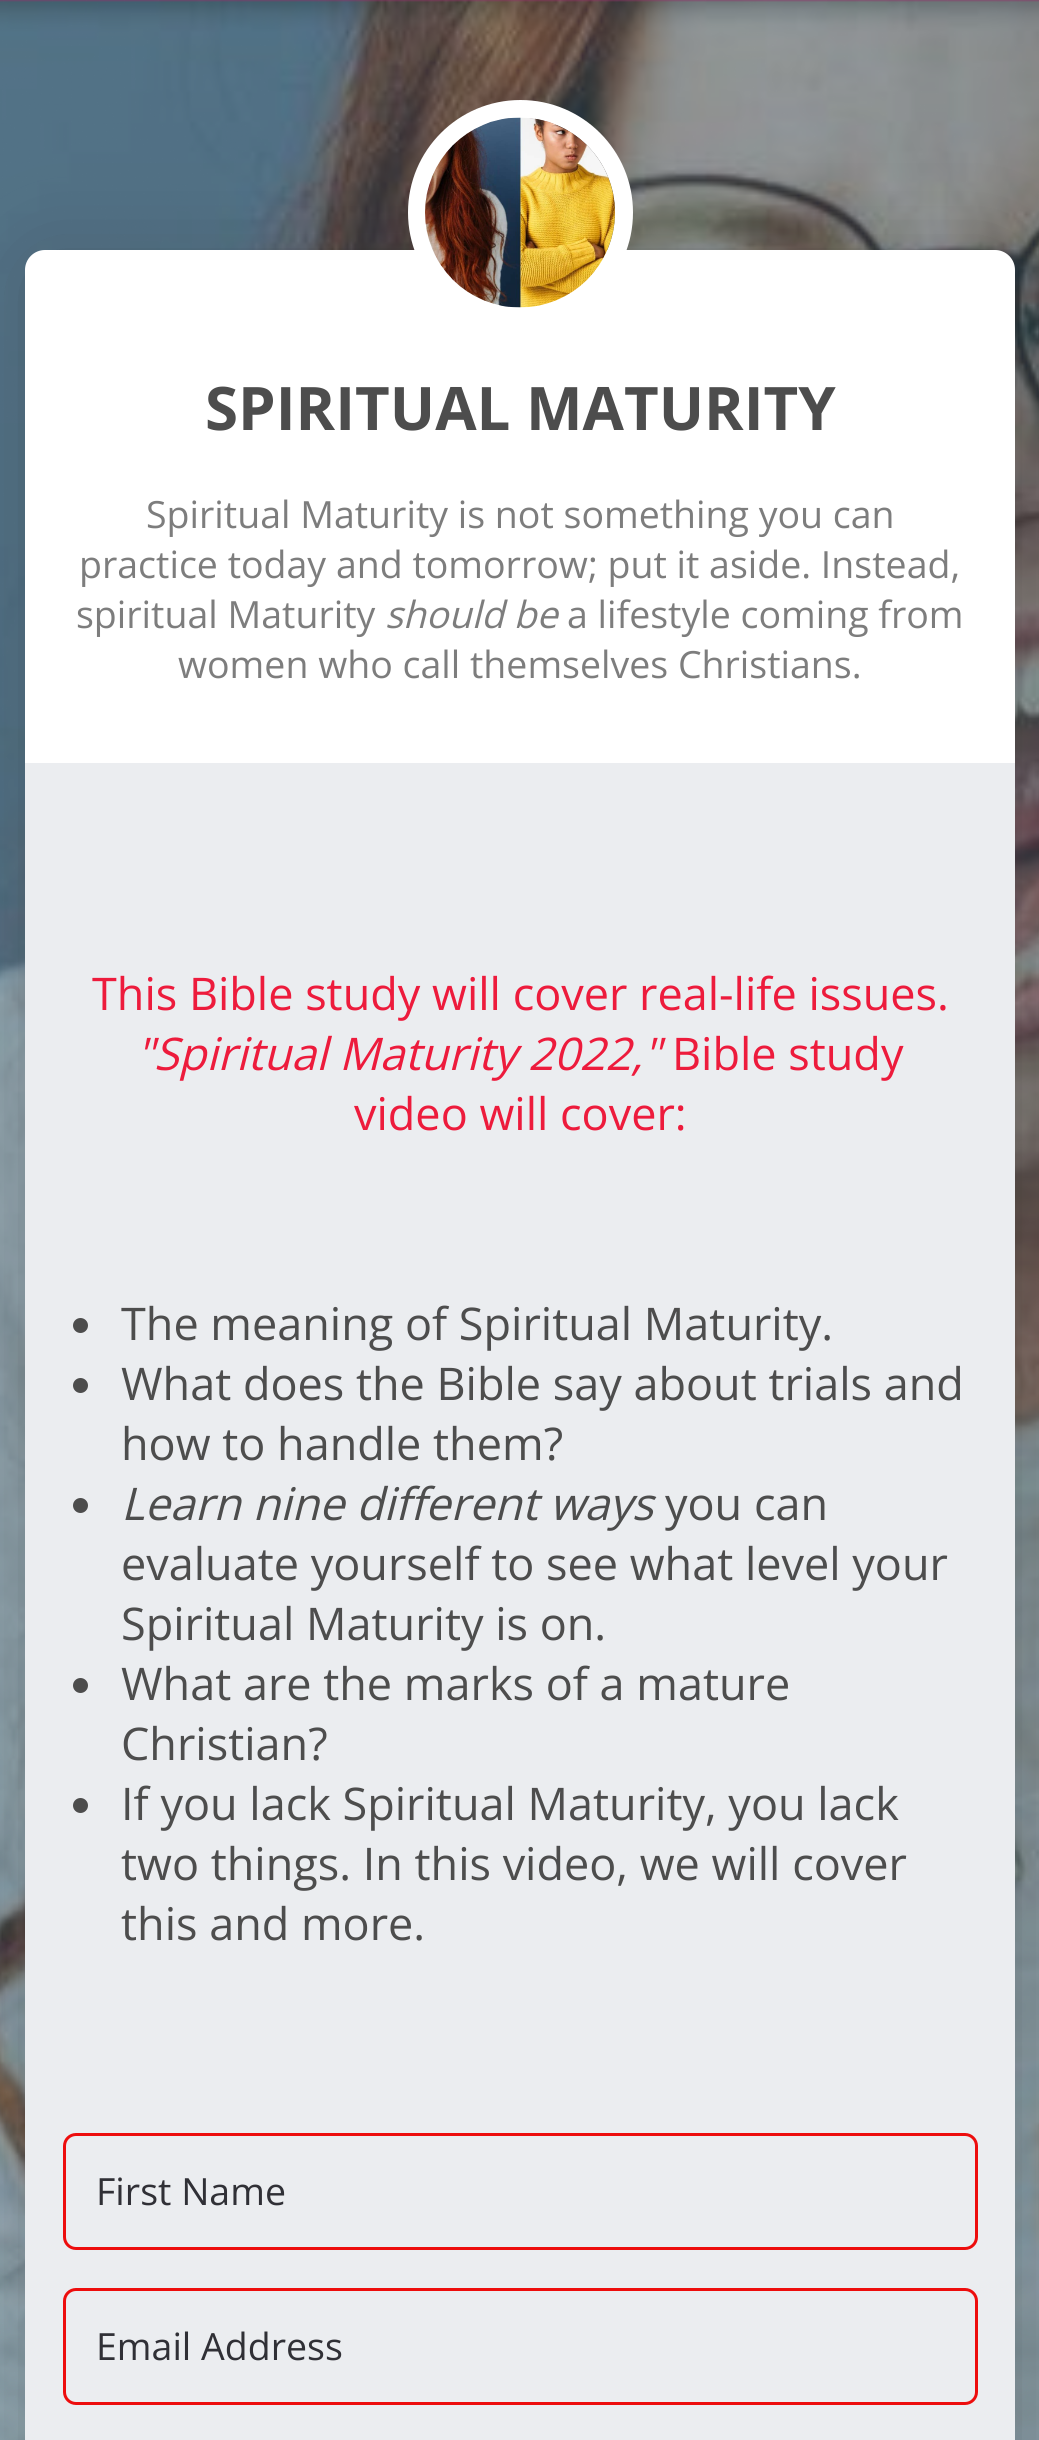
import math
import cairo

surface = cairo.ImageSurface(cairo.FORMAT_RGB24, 1039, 2440)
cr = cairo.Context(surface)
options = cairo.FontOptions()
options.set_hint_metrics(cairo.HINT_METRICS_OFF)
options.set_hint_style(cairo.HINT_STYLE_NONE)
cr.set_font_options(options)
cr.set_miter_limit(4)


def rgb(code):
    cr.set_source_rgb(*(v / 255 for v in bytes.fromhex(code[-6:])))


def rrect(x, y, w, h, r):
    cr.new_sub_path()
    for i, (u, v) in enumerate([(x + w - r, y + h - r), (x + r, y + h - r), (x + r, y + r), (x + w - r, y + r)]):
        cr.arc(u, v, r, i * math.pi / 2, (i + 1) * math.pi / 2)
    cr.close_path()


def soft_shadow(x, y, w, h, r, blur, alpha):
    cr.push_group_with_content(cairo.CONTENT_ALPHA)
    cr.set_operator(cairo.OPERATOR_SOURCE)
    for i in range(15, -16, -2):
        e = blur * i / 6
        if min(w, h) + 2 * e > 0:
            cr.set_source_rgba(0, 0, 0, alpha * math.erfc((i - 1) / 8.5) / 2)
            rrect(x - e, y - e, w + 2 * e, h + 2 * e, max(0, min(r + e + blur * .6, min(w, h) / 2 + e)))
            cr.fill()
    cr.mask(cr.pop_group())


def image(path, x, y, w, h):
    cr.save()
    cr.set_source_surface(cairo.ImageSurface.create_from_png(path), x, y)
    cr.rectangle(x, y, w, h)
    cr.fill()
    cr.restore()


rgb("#3d616f")
cr.paint()
image("img/1.png", 0, 0, 1039, 2440)
rgb("#333333")
soft_shadow(25, 255, 990, 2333, 20, 42.5, 0.25)
rgb("#ffffff")
rrect(25, 250, 990, 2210, 20)
cr.fill()
cr.arc(520.5, 212.5, 103.5, 0, 2 * math.pi)
cr.set_line_width(18)
cr.stroke()
image("img/2.png", 425, 117, 190, 191)
rgb("#ebedf0")
cr.rectangle(25, 763, 990, 1677)
cr.fill()
rgb("#4d4d4d")
cr.arc(80.5, 1325.5, 7.5, 0, 2 * math.pi)
cr.fill()
cr.arc(80.5, 1385.5, 7.5, 0, 2 * math.pi)
cr.fill()
cr.arc(80.5, 1505.5, 7.5, 0, 2 * math.pi)
cr.fill()
cr.arc(80.5, 1685.5, 7.5, 0, 2 * math.pi)
cr.fill()
cr.arc(80.5, 1805.5, 7.5, 0, 2 * math.pi)
cr.fill()
rrect(64.5, 2134.5, 912, 114, 11.5)
rgb("#ed0d0d")
cr.set_line_width(3)
cr.stroke()
rrect(64.5, 2289.5, 912, 114, 11.5)
cr.stroke()
cr.select_font_face("Open Sans", cairo.FONT_SLANT_NORMAL, cairo.FONT_WEIGHT_BOLD)
cr.set_font_size(60)
rgb("#4d4d4d")
cr.move_to(205, 430)
cr.show_text("SPIRITUAL MATURITY")
cr.select_font_face("Open Sans")
cr.set_font_size(37.5)
rgb("#7d7d7d")
for x, y, s in [
    (146, 528, "Spiritual Maturity is not something you can"),
    (79, 578, "practice today and tomorrow; put it aside. Instead,"),
    (76, 628, "spiritual Maturity"),
]:
    cr.move_to(x, y)
    cr.show_text(s)
cr.select_font_face("Open Sans", cairo.FONT_SLANT_ITALIC)
cr.move_to(385, 628)
cr.show_text("should be")
cr.select_font_face("Open Sans")
cr.move_to(567, 628)
cr.show_text("a lifestyle coming from")
cr.move_to(178, 678)
cr.show_text("women who call themselves Christians.")
cr.set_font_size(45)
rgb("#ed1b3c")
cr.move_to(92, 1010)
cr.show_text("This Bible study will cover real-life issues.")
cr.select_font_face("Open Sans", cairo.FONT_SLANT_ITALIC)
cr.move_to(136, 1070)
cr.show_text("\"Spiritual Maturity 2022,\"")
cr.select_font_face("Open Sans")
cr.move_to(672, 1070)
cr.show_text("Bible study")
cr.move_to(354, 1130)
cr.show_text("video will cover:")
rgb("#4d4d4d")
for x, y, s in [
    (121, 1340, "The meaning of Spiritual Maturity."),
    (121, 1400, "What does the Bible say about trials and"),
    (121, 1460, "how to handle them?"),
]:
    cr.move_to(x, y)
    cr.show_text(s)
cr.select_font_face("Open Sans", cairo.FONT_SLANT_ITALIC)
cr.move_to(121, 1520)
cr.show_text("Learn nine different ways")
cr.select_font_face("Open Sans")
for x, y, s in [
    (665, 1520, "you can"),
    (121, 1580, "evaluate yourself to see what level your"),
    (121, 1640, "Spiritual Maturity is on."),
    (121, 1700, "What are the marks of a mature"),
    (121, 1760, "Christian?"),
    (121, 1820, "If you lack Spiritual Maturity, you lack"),
    (121, 1880, "two things. In this video, we will cover"),
    (121, 1940, "this and more."),
]:
    cr.move_to(x, y)
    cr.show_text(s)
cr.set_font_size(37.5)
rgb("#303036")
cr.move_to(96, 2205)
cr.show_text("First Name")
cr.move_to(96, 2360)
cr.show_text("Email Address")
surface.write_to_png("page.png")
